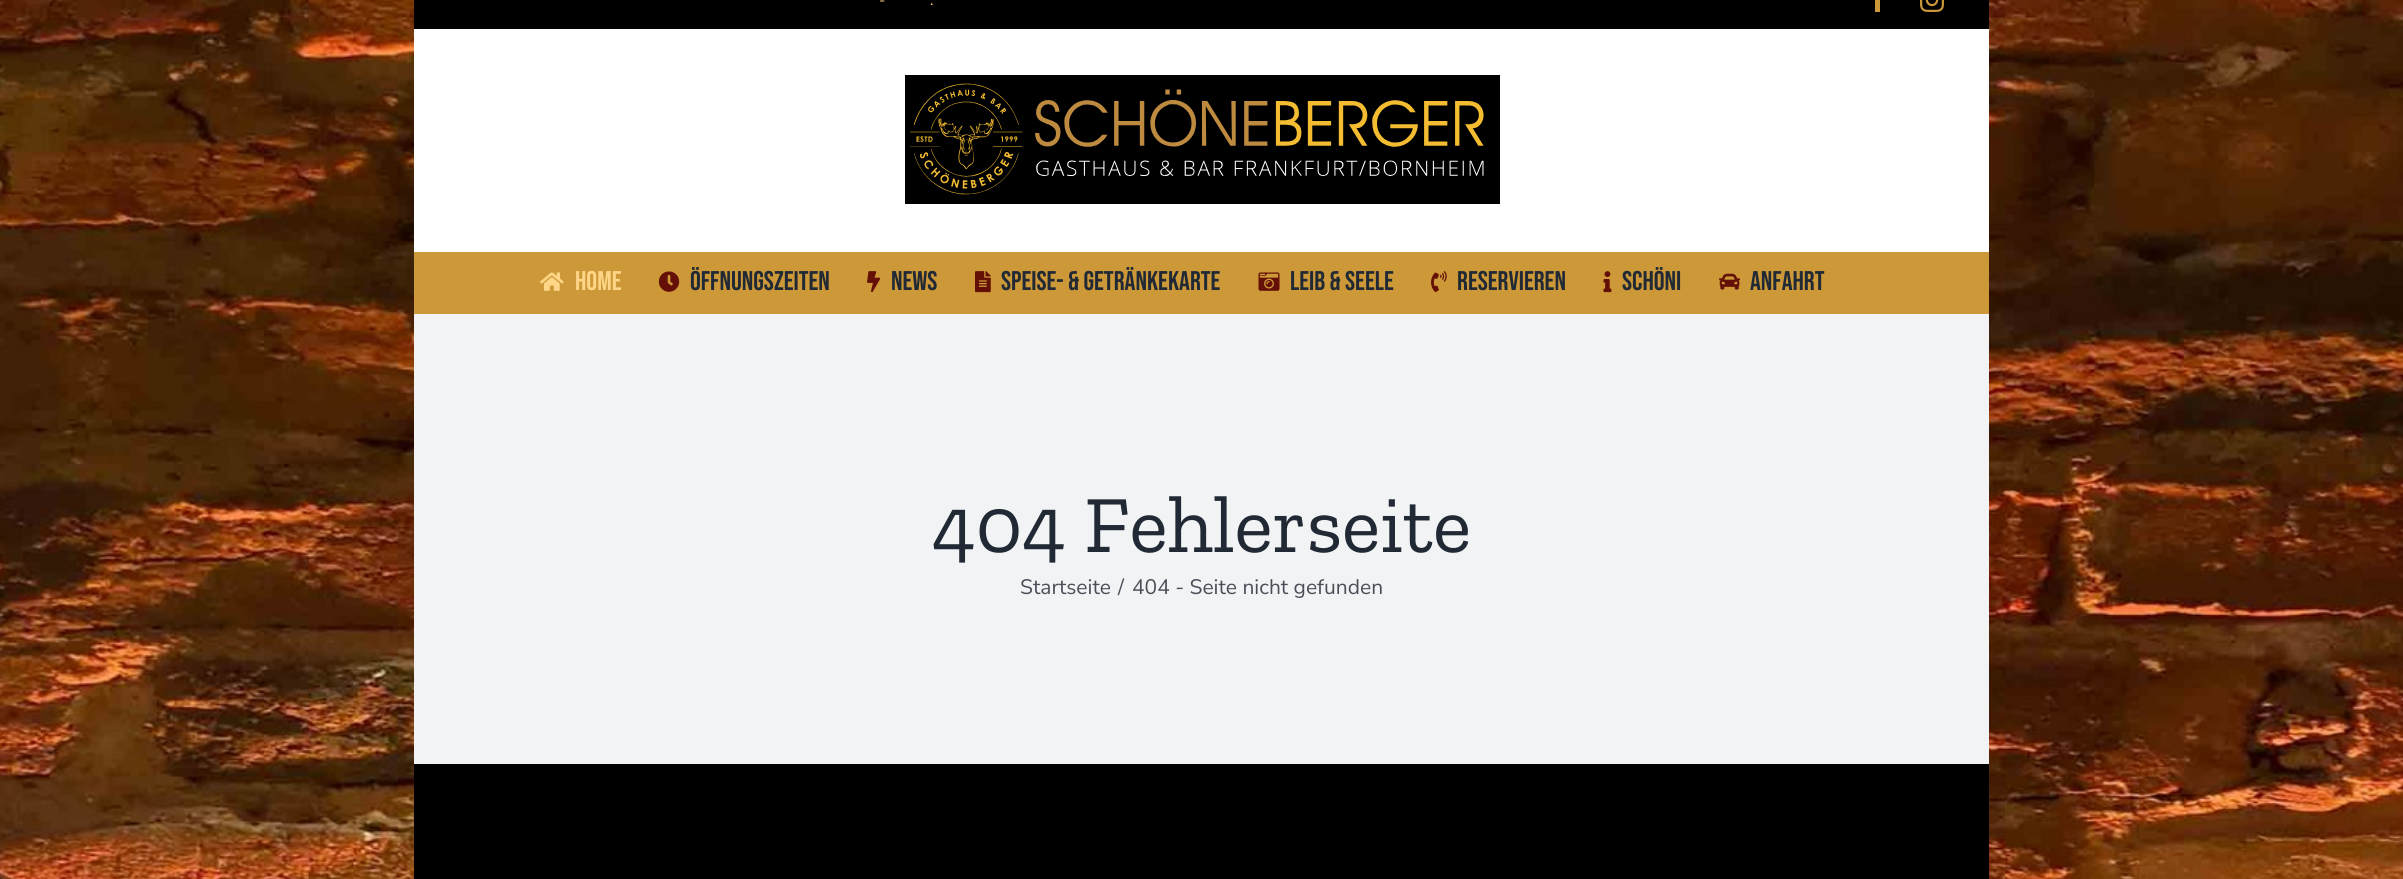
import math
import cairo

surface = cairo.ImageSurface(cairo.FORMAT_RGB24, 2403, 879)
cr = cairo.Context(surface)
options = cairo.FontOptions()
options.set_hint_metrics(cairo.HINT_METRICS_OFF)
options.set_hint_style(cairo.HINT_STYLE_NONE)
cr.set_font_options(options)
cr.set_miter_limit(4)


def rgb(code):
    cr.set_source_rgb(*(v / 255 for v in bytes.fromhex(code[-6:])))


def image(path, x, y, w, h):
    cr.save()
    cr.set_source_surface(cairo.ImageSurface.create_from_png(path), x, y)
    cr.rectangle(x, y, w, h)
    cr.fill()
    cr.restore()


rgb("#ffffff")
cr.paint()
image("img/1.png", 0, 0, 2403, 879)
rgb("#000000")
cr.rectangle(414, 0, 1575, 29)
cr.fill()
rgb("#cd9938")
cr.rectangle(1875, 0, 5, 12)
cr.fill()
image("img/2.png", 1920, 0, 24, 12)
rgb("#ffffff")
cr.rectangle(414, 29, 1575, 223)
cr.fill()
image("img/3.png", 905, 75, 595, 129)
rgb("#cd9938")
cr.rectangle(414, 252, 1575, 62)
cr.fill()
image("img/4.png", 540, 272, 24, 19)
image("img/5.png", 658, 271, 22, 21)
image("img/6.png", 867, 271, 14, 22)
image("img/7.png", 975, 271, 16, 22)
image("img/8.png", 1258, 272, 22, 19)
image("img/9.png", 1431, 271, 16, 22)
image("img/10.png", 1603, 271, 9, 22)
image("img/11.png", 1719, 273, 21, 17)
rgb("#f2f3f5")
cr.rectangle(414, 314, 1575, 450)
cr.fill()
rgb("#000000")
cr.rectangle(414, 764, 1575, 115)
cr.fill()
cr.select_font_face("Nunito Sans")
cr.set_font_size(15)
rgb("#ffd687")
cr.move_to(879, 5)
cr.show_text("-")
cr.move_to(930, 5)
cr.show_text(".")
cr.select_font_face("Bebas Neue")
cr.set_font_size(27)
cr.move_to(575, 290)
cr.show_text("HOME")
rgb("#212934")
for x, y, s in [
    (690, 290, "ÖFFNUNGSZEITEN"),
    (891, 290, "NEWS"),
    (1001, 290, "SPEISE- & GETRÄNKEKARTE"),
    (1290, 290, "LEIB & SEELE"),
    (1457, 290, "RESERVIEREN"),
    (1622, 290, "SCHÖNI"),
    (1750, 290, "ANFAHRT"),
]:
    cr.move_to(x, y)
    cr.show_text(s)
cr.select_font_face("Zilla Slab")
cr.set_font_size(81)
cr.move_to(932, 552)
cr.show_text("404 Fehlerseite")
cr.select_font_face("Nunito Sans")
cr.set_font_size(21)
rgb("#4a4e57")
for x, y, s in [
    (1020, 594, "Startseite"),
    (1118, 594, "/"),
    (1132, 594, "404 - Seite nicht gefunden"),
]:
    cr.move_to(x, y)
    cr.show_text(s)
surface.write_to_png("page.png")
